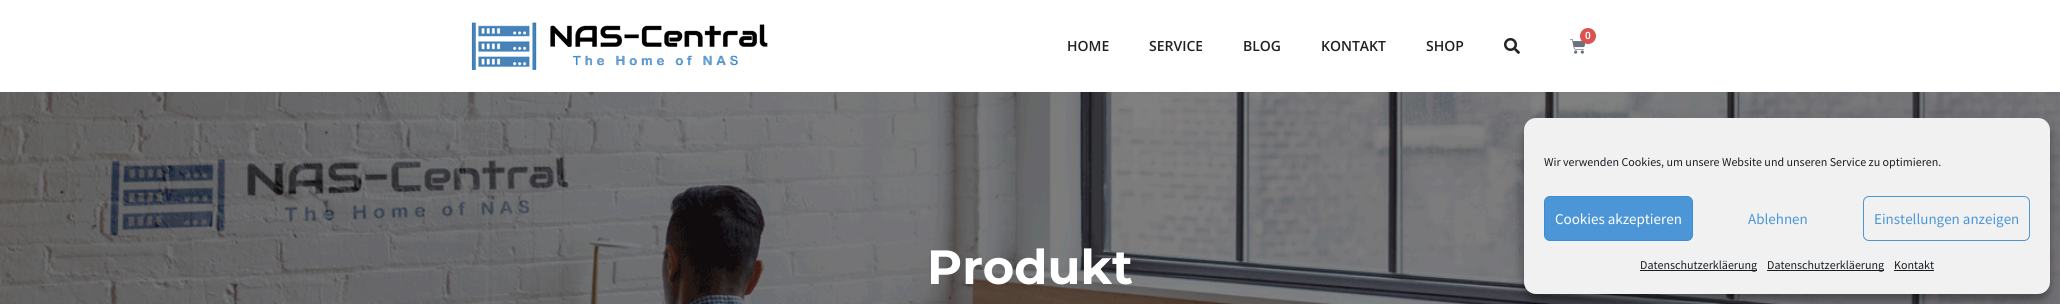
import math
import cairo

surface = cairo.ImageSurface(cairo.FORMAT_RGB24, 2060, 304)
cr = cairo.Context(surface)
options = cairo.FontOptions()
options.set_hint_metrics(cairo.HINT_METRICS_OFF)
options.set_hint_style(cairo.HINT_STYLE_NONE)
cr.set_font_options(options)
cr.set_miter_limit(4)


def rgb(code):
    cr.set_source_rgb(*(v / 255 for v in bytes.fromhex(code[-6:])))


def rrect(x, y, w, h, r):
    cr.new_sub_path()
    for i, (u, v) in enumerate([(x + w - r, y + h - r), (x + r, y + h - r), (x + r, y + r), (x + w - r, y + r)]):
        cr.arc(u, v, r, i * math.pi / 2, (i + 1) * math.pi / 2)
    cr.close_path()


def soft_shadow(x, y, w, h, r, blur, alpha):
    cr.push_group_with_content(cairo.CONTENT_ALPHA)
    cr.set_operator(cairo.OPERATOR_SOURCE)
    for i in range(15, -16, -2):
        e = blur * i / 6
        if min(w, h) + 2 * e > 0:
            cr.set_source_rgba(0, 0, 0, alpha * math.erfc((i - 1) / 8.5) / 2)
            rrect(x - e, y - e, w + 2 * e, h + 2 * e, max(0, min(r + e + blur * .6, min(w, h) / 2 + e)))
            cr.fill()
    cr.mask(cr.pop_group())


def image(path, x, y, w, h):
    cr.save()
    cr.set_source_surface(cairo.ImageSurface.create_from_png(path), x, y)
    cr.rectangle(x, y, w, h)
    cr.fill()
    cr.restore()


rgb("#ffffff")
cr.paint()
image("img/1.png", 471, 22, 297, 49)
image("img/2.png", 1570, 39, 16, 15)
rgb("#d9534f")
cr.arc(1588, 36, 8, 0, 2 * math.pi)
cr.fill()
image("img/3.png", 1504, 38, 16, 16)
image("img/4.png", 0, 92, 2060, 212)
rgb("#000000")
soft_shadow(1524, 124, 526, 176, 12, 3, 0.23)
soft_shadow(1524, 128, 526, 176, 12, 10, 0.19)
rgb("#f1f1f1")
rrect(1524, 118, 526, 176, 12)
cr.fill()
rgb("#4c96d7")
rrect(1544.5, 196.5, 148, 44, 5.5)
cr.fill_preserve()
rgb("#3b8ed6")
cr.set_line_width(1)
cr.stroke()
rrect(1863.5, 196.5, 166, 44, 5.5)
rgb("#4c96d7")
cr.stroke()
for x, y, w, h, color in [
    (1640, 270, 117, 1, "#191e23"),
    (1767, 270, 117, 1, "#191e23"),
    (1894, 270, 40, 1, "#191e23"),
]:
    rgb(color)
    cr.rectangle(x, y, w, h)
    cr.fill()
cr.select_font_face("Roboto SemiBold")
cr.set_font_size(10)
rgb("#ffffff")
cr.move_to(1585, 39)
cr.show_text("0")
cr.select_font_face("Open Sans SemiBold")
cr.set_font_size(14)
rgb("#222222")
for x, y, s in [
    (1067, 51, "HOME"),
    (1149, 51, "SERVICE"),
    (1243, 51, "BLOG"),
    (1321, 51, "KONTAKT"),
    (1426, 51, "SHOP"),
]:
    cr.move_to(x, y)
    cr.show_text(s)
cr.select_font_face("Montserrat", cairo.FONT_SLANT_NORMAL, cairo.FONT_WEIGHT_BOLD)
cr.set_font_size(48)
rgb("#ffffff")
cr.move_to(927, 284)
cr.show_text("Produkt")
cr.select_font_face("Source Sans Pro")
cr.set_font_size(12)
rgb("#191e23")
cr.move_to(1544, 166)
cr.show_text("Wir verwenden Cookies, um unsere Website und unseren Service zu optimieren.")
cr.set_font_size(15)
rgb("#ffffff")
cr.move_to(1555, 224)
cr.show_text("Cookies akzeptieren")
rgb("#4c96d7")
cr.move_to(1748, 224)
cr.show_text("Ablehnen")
cr.move_to(1874, 224)
cr.show_text("Einstellungen anzeigen")
cr.set_font_size(12)
rgb("#191e23")
for x, y, s in [
    (1640, 269, "Datenschutzerkläerung"),
    (1767, 269, "Datenschutzerkläerung"),
    (1894, 269, "Kontakt"),
]:
    cr.move_to(x, y)
    cr.show_text(s)
surface.write_to_png("page.png")
